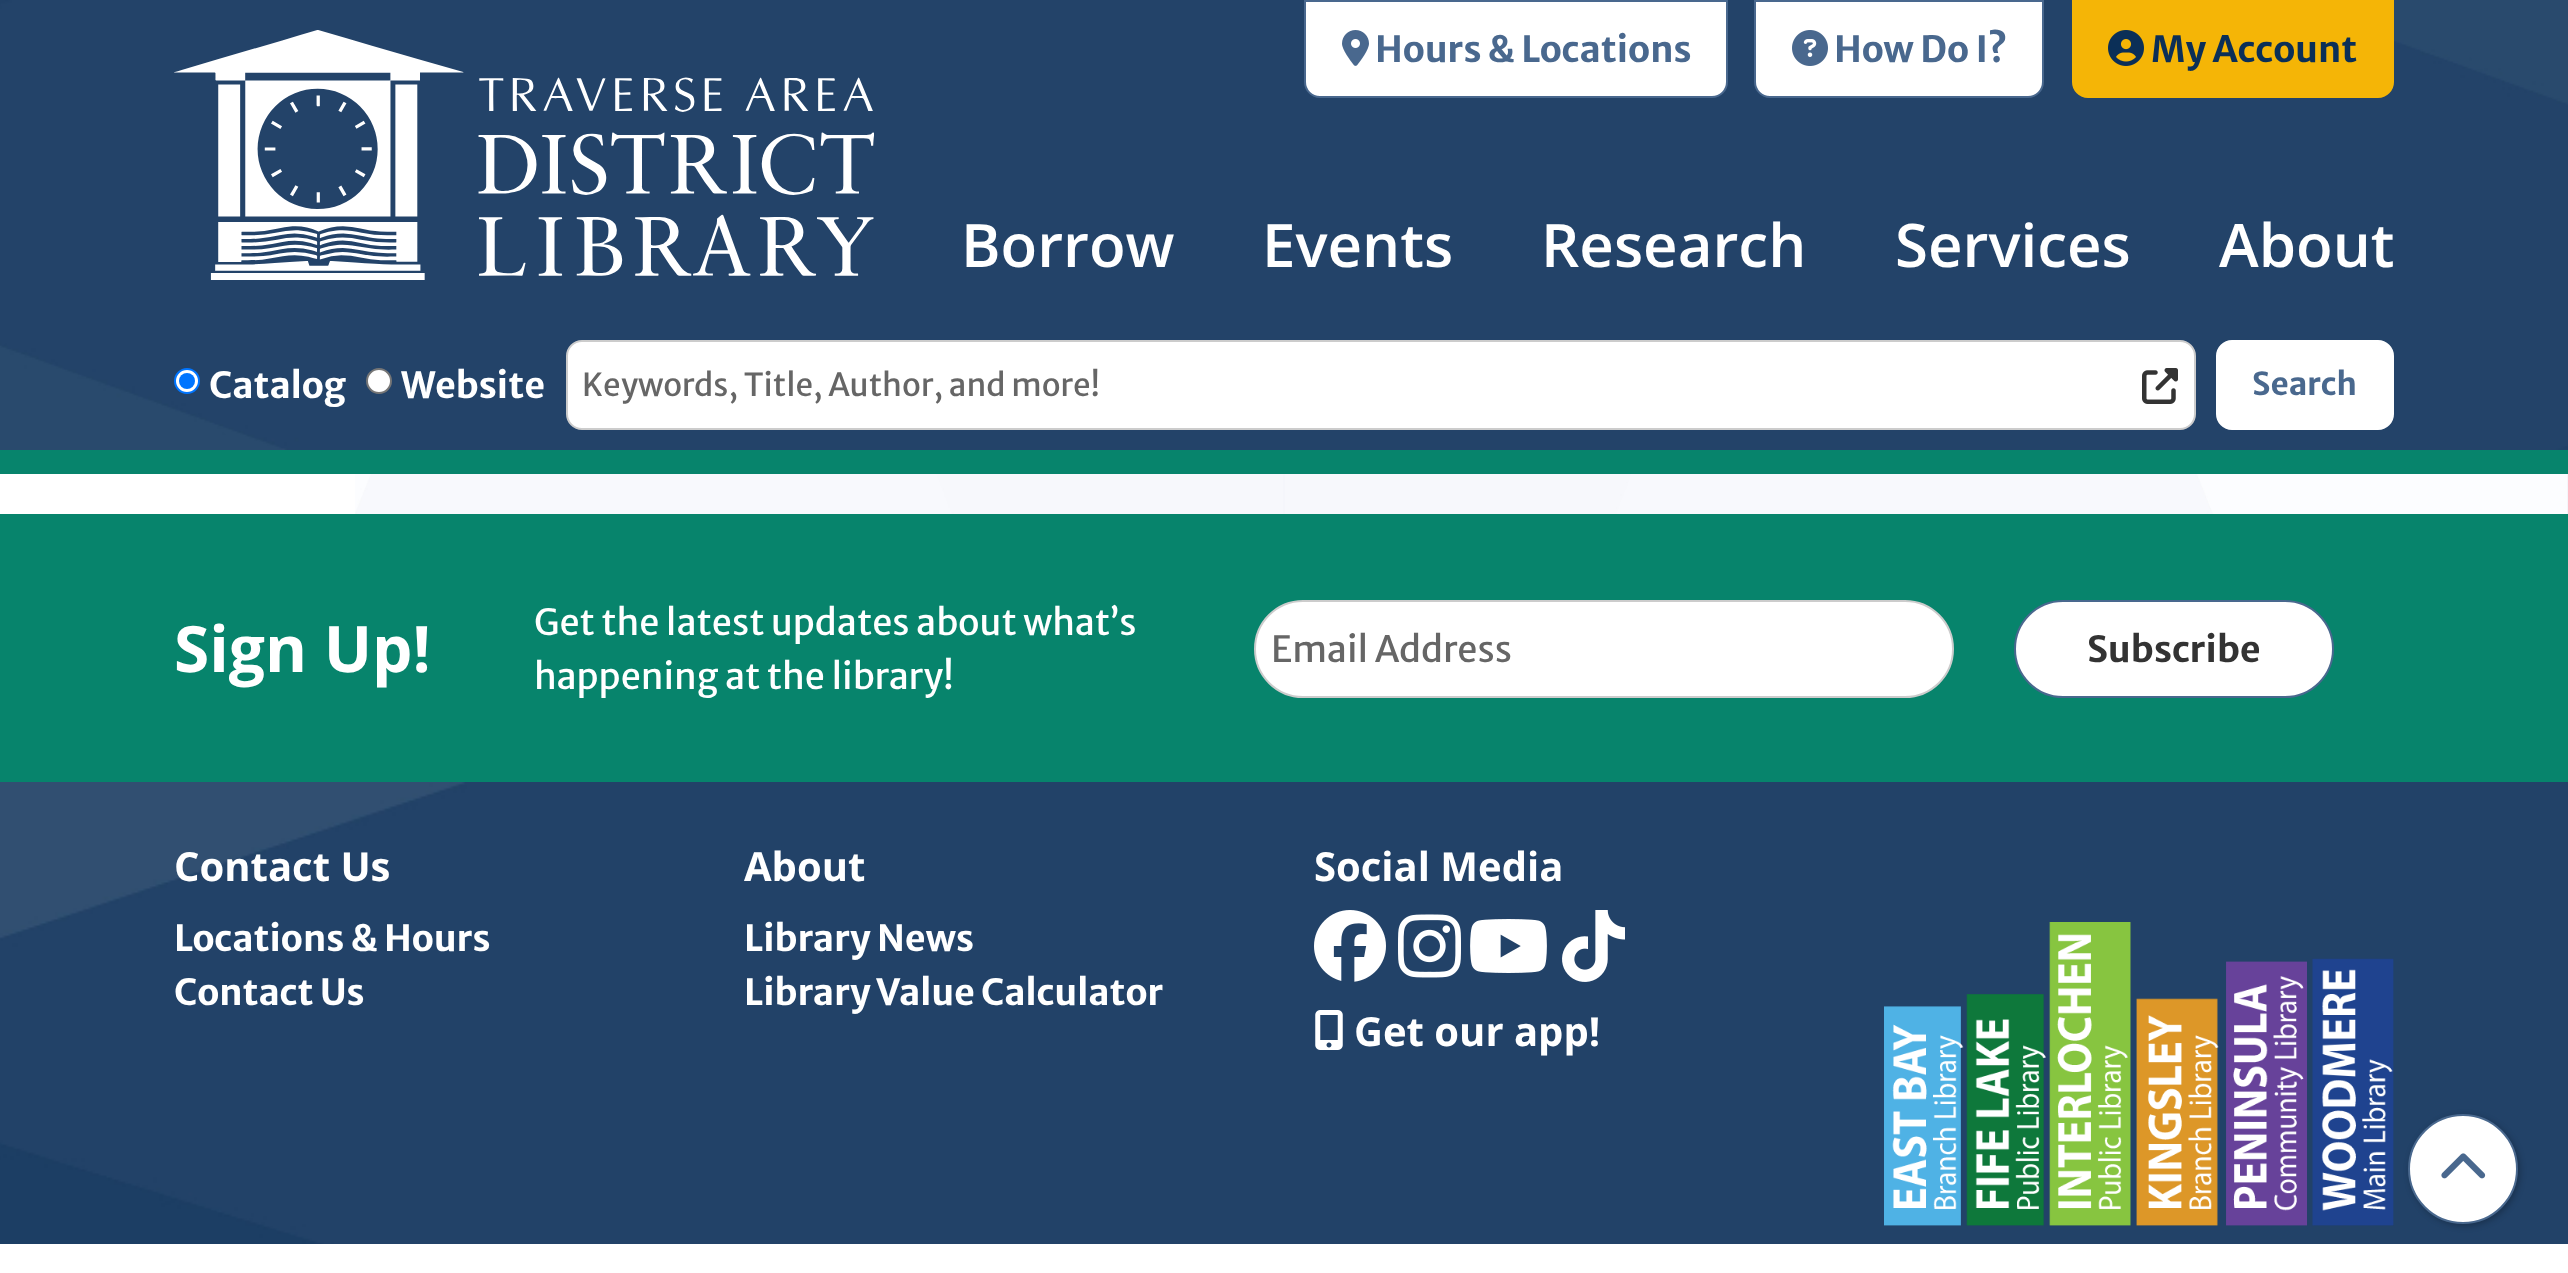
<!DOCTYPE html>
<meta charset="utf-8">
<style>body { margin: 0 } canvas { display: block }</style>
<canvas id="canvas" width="2568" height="1273"></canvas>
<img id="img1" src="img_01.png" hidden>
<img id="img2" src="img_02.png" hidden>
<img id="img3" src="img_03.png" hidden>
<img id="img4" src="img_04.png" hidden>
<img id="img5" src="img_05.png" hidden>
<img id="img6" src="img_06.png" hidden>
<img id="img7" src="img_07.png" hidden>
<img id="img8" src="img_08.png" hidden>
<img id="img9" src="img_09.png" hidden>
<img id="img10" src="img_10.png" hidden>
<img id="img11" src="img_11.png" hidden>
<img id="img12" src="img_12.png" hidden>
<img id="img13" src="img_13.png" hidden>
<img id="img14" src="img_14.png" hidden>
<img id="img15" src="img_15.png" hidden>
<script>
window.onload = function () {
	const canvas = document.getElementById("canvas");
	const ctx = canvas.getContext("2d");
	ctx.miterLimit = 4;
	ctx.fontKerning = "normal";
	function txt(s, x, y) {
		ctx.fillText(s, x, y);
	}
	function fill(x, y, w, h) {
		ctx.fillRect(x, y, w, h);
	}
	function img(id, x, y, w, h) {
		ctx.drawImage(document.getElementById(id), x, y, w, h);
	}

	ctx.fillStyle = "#FFFFFF";
	fill(0, 0, 2568, 1273);
	ctx.fillStyle = "#07846C";
	fill(0, 450, 2568, 24);
	img("img1", 0, 0, 2568, 450);
	img("img2", 174, 30, 700, 250);
	ctx.fillStyle = "#FFFFFF";
	ctx.beginPath();
	ctx.roundRect(1305, 1, 422, 96, [0, 0, 15, 15]);
	ctx.fill();
	ctx.strokeStyle = "#49688E";
	ctx.lineWidth = 2;
	ctx.stroke();
	img("img3", 1342, 30, 27, 36);
	ctx.beginPath();
	ctx.roundRect(1755, 1, 288, 96, [0, 0, 15, 15]);
	ctx.fill();
	ctx.stroke();
	img("img4", 1792, 30, 36, 36);
	ctx.fillStyle = "#F5B506";
	ctx.beginPath();
	ctx.roundRect(2073, 1, 320, 96, [0, 0, 15, 15]);
	ctx.fill();
	ctx.strokeStyle = "#F5B506";
	ctx.stroke();
	img("img5", 2108, 30, 36, 36);
	ctx.fillStyle = "#FFFFFF";
	ctx.beginPath();
	ctx.arc(187, 381, 12, 0, Math.PI * 2);
	ctx.fill();
	ctx.strokeStyle = "#0075FF";
	ctx.stroke();
	ctx.fillStyle = "#0075FF";
	ctx.beginPath();
	ctx.arc(187, 381, 8, 0, Math.PI * 2);
	ctx.fill();
	ctx.fillStyle = "#FFFFFF";
	ctx.beginPath();
	ctx.arc(379, 381, 12, 0, Math.PI * 2);
	ctx.fill();
	ctx.strokeStyle = "#767676";
	ctx.stroke();
	ctx.beginPath();
	ctx.roundRect(567, 341, 1628, 88, 15);
	ctx.fill();
	ctx.strokeStyle = "#CCCCCC";
	ctx.stroke();
	img("img6", 2142, 368, 36, 36);
	ctx.beginPath();
	ctx.roundRect(2217, 341, 176, 88, 15);
	ctx.fill();
	ctx.strokeStyle = "#FFFFFF";
	ctx.stroke();
	img("img7", 355, 474, 2213, 40);
	ctx.fillStyle = "#07846C";
	fill(0, 514, 2568, 268);
	ctx.fillStyle = "#FFFFFF";
	ctx.beginPath();
	ctx.roundRect(1255, 601, 698, 96, 48);
	ctx.fill();
	ctx.strokeStyle = "#CCCCCC";
	ctx.stroke();
	ctx.beginPath();
	ctx.roundRect(2015, 601, 318, 96, 48);
	ctx.fill();
	ctx.strokeStyle = "#49688E";
	ctx.stroke();
	img("img8", 0, 782, 2568, 462);
	img("img9", 1314, 910, 72, 72);
	img("img10", 1398, 914, 63, 64);
	img("img11", 1470, 919, 77, 54);
	img("img12", 1562, 910, 63, 72);
	img("img13", 1315, 1010, 28, 40);
	img("img14", 1884, 922, 510, 304);
	ctx.fillStyle = "rgba(0, 0, 0, 0.25)";
	ctx.filter = "blur(3px)";
	ctx.beginPath();
	ctx.roundRect(2410, 1116, 110, 110, 55);
	ctx.fill();
	ctx.filter = "none";
	ctx.fillStyle = "#FFFFFF";
	ctx.beginPath();
	ctx.arc(2463, 1169, 54, 0, Math.PI * 2);
	ctx.fill();
	ctx.stroke();
	img("img15", 2441, 1153, 45, 26);
	ctx.font = "bold 36px Merriweather Sans";
	ctx.fillStyle = "#49688E";
	txt("Hours & Locations", 1375, 62);
	txt("How Do I?", 1834, 62);
	ctx.fillStyle = "#0B2F57";
	txt("My Account", 2151, 62);
	ctx.font = "600 60px Open Sans";
	ctx.fillStyle = "#FFFFFF";
	txt("Borrow", 961, 267);
	txt("Events", 1262, 267);
	txt("Research", 1541, 267);
	txt("Services", 1895, 267);
	txt("About", 2219, 267);
	ctx.font = "bold 36px Merriweather Sans";
	txt("Catalog", 209, 398);
	txt("Website", 401, 398);
	ctx.font = "31.5px Merriweather Sans";
	ctx.fillStyle = "#666666";
	txt("Keywords, Title, Author, and more!", 582, 396);
	ctx.font = "bold 31.5px Merriweather Sans";
	ctx.fillStyle = "#49688E";
	txt("Search", 2252, 395);
	ctx.font = "bold 64px Open Sans";
	ctx.fillStyle = "#FFFFFF";
	txt("Sign Up!", 174, 672);
	ctx.font = "36px Merriweather Sans";
	txt("Get the latest updates about what’s", 534, 635);
	txt("happening at the library!", 534, 689);
	ctx.fillStyle = "#666666";
	txt("Email Address", 1271, 662);
	ctx.font = "bold 36px Merriweather Sans";
	ctx.fillStyle = "#333333";
	txt("Subscribe", 2087, 662);
	ctx.font = "bold 40px Open Sans";
	ctx.fillStyle = "#FFFFFF";
	txt("Contact Us", 174, 881);
	ctx.font = "bold 36px Merriweather Sans";
	txt("Locations & Hours", 174, 951);
	txt("Contact Us", 174, 1005);
	ctx.font = "bold 40px Open Sans";
	txt("About", 744, 881);
	ctx.font = "bold 36px Merriweather Sans";
	txt("Library News", 744, 951);
	txt("Library Value Calculator", 744, 1005);
	ctx.font = "bold 40px Open Sans";
	txt("Social Media", 1314, 881);
	txt("Get our app!", 1354, 1046);
};
</script>
